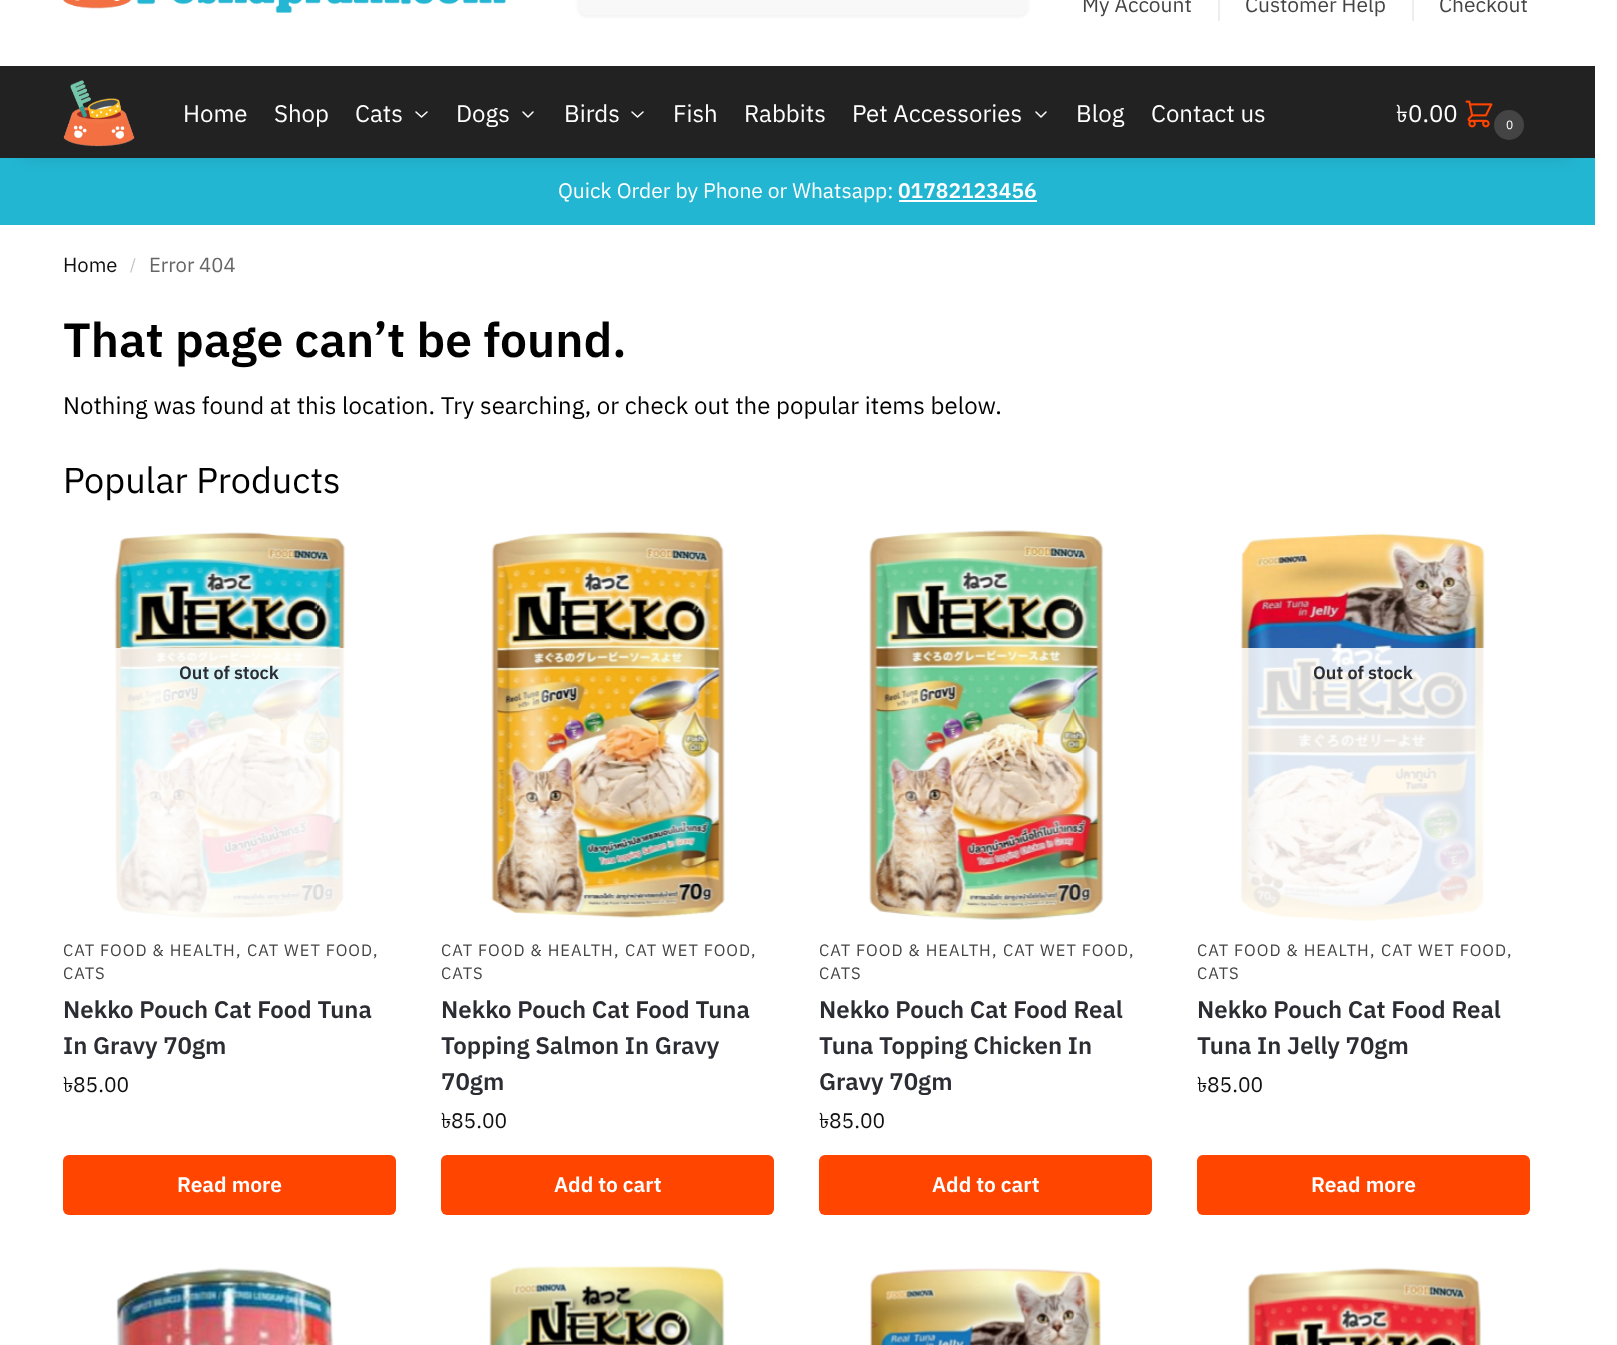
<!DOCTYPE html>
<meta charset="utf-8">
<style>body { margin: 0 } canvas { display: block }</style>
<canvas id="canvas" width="1617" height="1345"></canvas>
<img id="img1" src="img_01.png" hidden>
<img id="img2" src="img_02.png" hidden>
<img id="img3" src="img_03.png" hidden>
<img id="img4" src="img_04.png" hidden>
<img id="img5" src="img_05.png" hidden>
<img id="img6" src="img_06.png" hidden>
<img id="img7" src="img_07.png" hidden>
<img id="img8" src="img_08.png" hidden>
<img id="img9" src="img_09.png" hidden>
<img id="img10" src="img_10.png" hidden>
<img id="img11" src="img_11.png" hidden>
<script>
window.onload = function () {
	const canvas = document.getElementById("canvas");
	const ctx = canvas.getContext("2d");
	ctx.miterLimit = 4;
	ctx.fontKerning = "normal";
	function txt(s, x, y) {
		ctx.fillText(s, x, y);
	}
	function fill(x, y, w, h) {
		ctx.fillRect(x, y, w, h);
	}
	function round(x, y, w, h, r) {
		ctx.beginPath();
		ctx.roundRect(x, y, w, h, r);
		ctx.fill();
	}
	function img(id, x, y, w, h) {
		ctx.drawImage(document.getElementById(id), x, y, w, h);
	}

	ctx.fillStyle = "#FFFFFF";
	fill(0, 0, 1617, 1345);
	img("img1", 63, 0, 443, 13);
	ctx.fillStyle = "rgba(0, 0, 0, 0.05)";
	ctx.filter = "blur(1.5px)";
	ctx.beginPath();
	ctx.roundRect(578, -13, 450, 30, 8);
	ctx.fill();
	ctx.filter = "none";
	ctx.fillStyle = "#F8F8F8";
	round(578, -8, 450, 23, 8);
	ctx.fillStyle = "#EEEEEE";
	fill(1218, 0, 2, 21);
	fill(1412, 0, 2, 21);
	ctx.fillStyle = "#23B6D3";
	fill(0, 158, 1595, 67);
	ctx.fillStyle = "rgba(0, 0, 0, 0.1)";
	ctx.filter = "blur(7.5px)";
	ctx.beginPath();
	ctx.rect(23, 111, 1549, 47);
	ctx.fill();
	ctx.filter = "none";
	ctx.fillStyle = "#222222";
	fill(0, 66, 1595, 92);
	img("img2", 63, 80, 72, 67);
	ctx.beginPath();
	ctx.moveTo(427, 112);
	ctx.lineTo(421.5, 117);
	ctx.lineTo(416, 112);
	ctx.strokeStyle = "#FFFFFF";
	ctx.lineWidth = 1.5;
	ctx.lineCap = "round";
	ctx.lineJoin = "round";
	ctx.stroke();
	ctx.beginPath();
	ctx.moveTo(533, 112);
	ctx.lineTo(528, 117);
	ctx.lineTo(523, 112);
	ctx.stroke();
	ctx.beginPath();
	ctx.moveTo(643, 112);
	ctx.lineTo(637.5, 117);
	ctx.lineTo(632, 112);
	ctx.stroke();
	ctx.beginPath();
	ctx.moveTo(1046, 112);
	ctx.lineTo(1041, 117);
	ctx.lineTo(1036, 112);
	ctx.stroke();
	img("img3", 1465, 100, 28, 28);
	ctx.fillStyle = "#444444";
	ctx.beginPath();
	ctx.arc(1509, 125, 14, 0, Math.PI * 2);
	ctx.fill();
	ctx.strokeStyle = "#444444";
	ctx.lineWidth = 2;
	ctx.stroke();
	ctx.fillStyle = "#FFFFFF";
	fill(899, 200, 138, 2);
	img("img4", 114, 532, 232, 387);
	ctx.fillStyle = "rgba(255, 255, 255, 0.85)";
	fill(114, 648, 231, 271);
	ctx.fillStyle = "#FF4500";
	round(63, 1155, 333, 60, 6);
	img("img5", 491, 531, 234, 387);
	round(441, 1155, 333, 60, 6);
	img("img6", 869, 530, 235, 390);
	round(819, 1155, 333, 60, 6);
	img("img7", 1240, 533, 245, 388);
	ctx.fillStyle = "rgba(255, 255, 255, 0.85)";
	fill(1240, 648, 245, 273);
	ctx.fillStyle = "#FF4500";
	round(1197, 1155, 333, 60, 6);
	img("img8", 116, 1267, 218, 78);
	img("img9", 489, 1266, 236, 79);
	img("img10", 869, 1268, 232, 77);
	img("img11", 1247, 1267, 235, 78);
	ctx.font = "21px IBM Plex Sans";
	ctx.fillStyle = "#444444";
	txt("My Account", 1082, 12);
	txt("Customer Help", 1245, 12);
	txt("Checkout", 1439, 12);
	ctx.font = "24px IBM Plex Sans";
	ctx.fillStyle = "#FFFFFF";
	txt("Home", 183, 122);
	txt("Shop", 274, 122);
	txt("Cats", 355, 122);
	txt("Dogs", 456, 122);
	txt("Birds", 564, 122);
	txt("Fish", 673, 122);
	txt("Rabbits", 744, 122);
	txt("Pet Accessories", 852, 122);
	txt("Blog", 1076, 122);
	txt("Contact us", 1151, 122);
	ctx.font = "24px Lohit Bengali";
	txt("৳", 1396, 122);
	ctx.font = "24px IBM Plex Sans";
	txt("0.00", 1408, 122);
	ctx.font = "12px IBM Plex Sans";
	txt("0", 1506, 129);
	ctx.font = "21px IBM Plex Sans";
	txt("Quick Order by Phone or Whatsapp:", 558, 198);
	ctx.font = "600 21px IBM Plex Sans";
	txt("01782123456", 898, 198);
	ctx.font = "20.25px IBM Plex Sans";
	ctx.fillStyle = "#111111";
	txt("Home", 63, 272);
	ctx.font = "16px IBM Plex Sans";
	ctx.fillStyle = "#C2C2C2";
	txt("/", 130, 270);
	ctx.font = "20.25px IBM Plex Sans";
	ctx.fillStyle = "#666666";
	txt("Error 404", 149, 272);
	ctx.font = "600 48px IBM Plex Sans";
	ctx.fillStyle = "#000000";
	txt("That page can’t be found.", 63, 357);
	ctx.font = "24px IBM Plex Sans";
	txt("Nothing was found at this location. Try searching, or check out the popular items below.", 63, 414);
	ctx.font = "36px IBM Plex Sans";
	txt("Popular Products", 63, 493);
	ctx.font = "600 18px IBM Plex Sans";
	ctx.fillStyle = "#2C2D33";
	txt("Out of stock", 179, 679);
	ctx.letterSpacing = "1px";
	ctx.font = "16.5px IBM Plex Sans";
	ctx.fillStyle = "#444444";
	txt("CAT FOOD & HEALTH", 63, 956);
	txt(",", 236, 956);
	txt("CAT WET FOOD", 247, 956);
	txt(",", 373, 956);
	txt("CATS", 63, 979);
	ctx.letterSpacing = "0px";
	ctx.font = "600 24px IBM Plex Sans";
	ctx.fillStyle = "#2C2D33";
	txt("Nekko Pouch Cat Food Tuna", 63, 1018);
	txt("In Gravy 70gm", 63, 1054);
	ctx.font = "21px Lohit Bengali";
	ctx.fillStyle = "#111111";
	txt("৳", 63, 1092);
	ctx.font = "21px IBM Plex Sans";
	txt("85.00", 73, 1092);
	ctx.font = "600 21px IBM Plex Sans";
	ctx.fillStyle = "#FFFFFF";
	txt("Read more", 177, 1192);
	ctx.letterSpacing = "1px";
	ctx.font = "16.5px IBM Plex Sans";
	ctx.fillStyle = "#444444";
	txt("CAT FOOD & HEALTH", 441, 956);
	txt(",", 614, 956);
	txt("CAT WET FOOD", 625, 956);
	txt(",", 751, 956);
	txt("CATS", 441, 979);
	ctx.letterSpacing = "0px";
	ctx.font = "600 24px IBM Plex Sans";
	ctx.fillStyle = "#2C2D33";
	txt("Nekko Pouch Cat Food Tuna", 441, 1018);
	txt("Topping Salmon In Gravy", 441, 1054);
	txt("70gm", 441, 1090);
	ctx.font = "21px Lohit Bengali";
	ctx.fillStyle = "#111111";
	txt("৳", 441, 1128);
	ctx.font = "21px IBM Plex Sans";
	txt("85.00", 451, 1128);
	ctx.font = "600 21px IBM Plex Sans";
	ctx.fillStyle = "#FFFFFF";
	txt("Add to cart", 554, 1192);
	ctx.letterSpacing = "1px";
	ctx.font = "16.5px IBM Plex Sans";
	ctx.fillStyle = "#444444";
	txt("CAT FOOD & HEALTH", 819, 956);
	txt(",", 992, 956);
	txt("CAT WET FOOD", 1003, 956);
	txt(",", 1129, 956);
	txt("CATS", 819, 979);
	ctx.letterSpacing = "0px";
	ctx.font = "600 24px IBM Plex Sans";
	ctx.fillStyle = "#2C2D33";
	txt("Nekko Pouch Cat Food Real", 819, 1018);
	txt("Tuna Topping Chicken In", 819, 1054);
	txt("Gravy 70gm", 819, 1090);
	ctx.font = "21px Lohit Bengali";
	ctx.fillStyle = "#111111";
	txt("৳", 819, 1128);
	ctx.font = "21px IBM Plex Sans";
	txt("85.00", 829, 1128);
	ctx.font = "600 21px IBM Plex Sans";
	ctx.fillStyle = "#FFFFFF";
	txt("Add to cart", 932, 1192);
	ctx.font = "600 18px IBM Plex Sans";
	ctx.fillStyle = "#2C2D33";
	txt("Out of stock", 1313, 679);
	ctx.letterSpacing = "1px";
	ctx.font = "16.5px IBM Plex Sans";
	ctx.fillStyle = "#444444";
	txt("CAT FOOD & HEALTH", 1197, 956);
	txt(",", 1370, 956);
	txt("CAT WET FOOD", 1381, 956);
	txt(",", 1507, 956);
	txt("CATS", 1197, 979);
	ctx.letterSpacing = "0px";
	ctx.font = "600 24px IBM Plex Sans";
	ctx.fillStyle = "#2C2D33";
	txt("Nekko Pouch Cat Food Real", 1197, 1018);
	txt("Tuna In Jelly 70gm", 1197, 1054);
	ctx.font = "21px Lohit Bengali";
	ctx.fillStyle = "#111111";
	txt("৳", 1197, 1092);
	ctx.font = "21px IBM Plex Sans";
	txt("85.00", 1207, 1092);
	ctx.font = "600 21px IBM Plex Sans";
	ctx.fillStyle = "#FFFFFF";
	txt("Read more", 1311, 1192);
};
</script>
